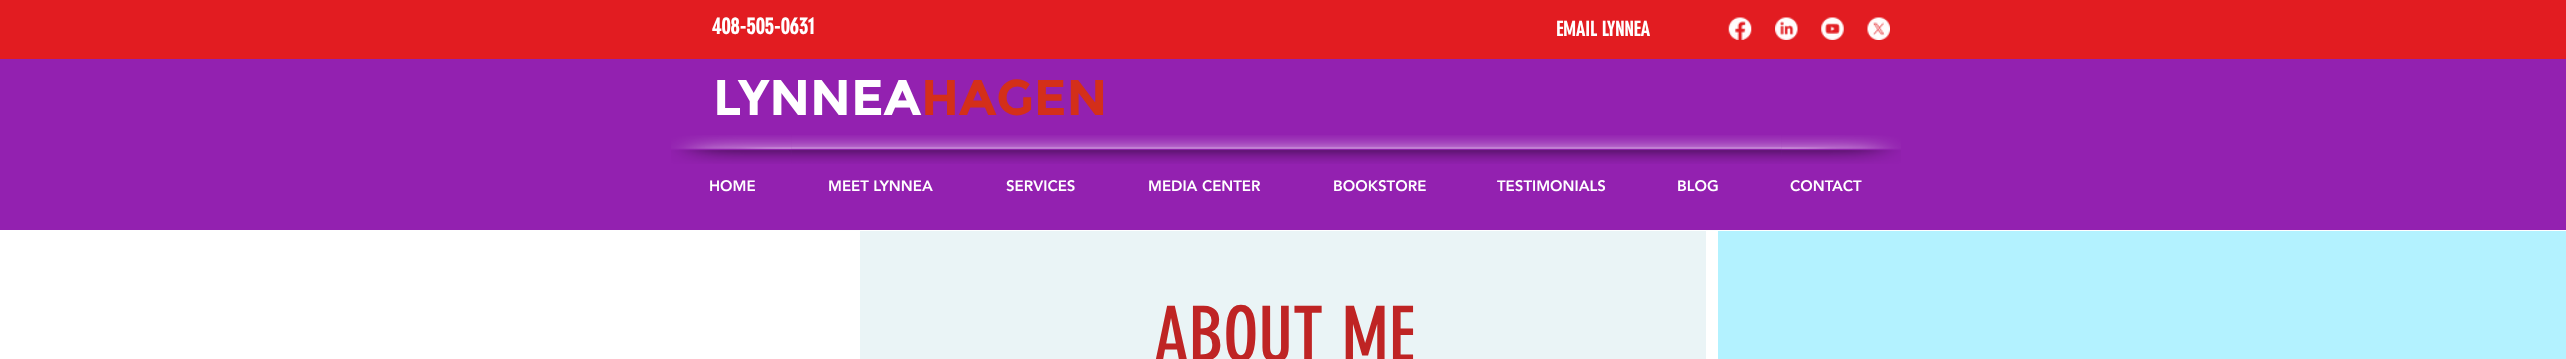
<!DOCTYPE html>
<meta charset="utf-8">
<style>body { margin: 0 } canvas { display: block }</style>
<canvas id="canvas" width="2566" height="359"></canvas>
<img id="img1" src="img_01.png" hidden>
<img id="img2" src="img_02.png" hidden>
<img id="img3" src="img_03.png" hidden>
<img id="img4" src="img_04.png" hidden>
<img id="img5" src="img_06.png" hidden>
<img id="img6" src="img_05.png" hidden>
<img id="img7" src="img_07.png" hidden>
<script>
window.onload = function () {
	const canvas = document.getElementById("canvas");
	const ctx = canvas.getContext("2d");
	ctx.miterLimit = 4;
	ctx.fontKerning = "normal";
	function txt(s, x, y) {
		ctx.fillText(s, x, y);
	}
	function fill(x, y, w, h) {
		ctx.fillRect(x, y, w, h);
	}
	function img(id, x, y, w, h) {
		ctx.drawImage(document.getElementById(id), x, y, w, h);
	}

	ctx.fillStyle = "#FFFFFF";
	fill(0, 0, 2566, 359);
	ctx.fillStyle = "#E21C21";
	fill(0, 0, 2566, 59);
	img("img1", 1728, 17, 24, 23);
	img("img2", 1775, 17, 23, 23);
	img("img3", 1821, 17, 23, 23);
	img("img4", 1867, 17, 23, 23);
	ctx.fillStyle = "#9321B0";
	fill(0, 59, 2566, 171);
	img("img5", 791, 135, 991, 29);
	img("img6", 671, 135, 121, 29);
	img("img7", 1781, 135, 120, 29);
	ctx.fillStyle = "#EAF4F6";
	fill(860, 231, 846, 128);
	ctx.fillStyle = "#B3F2FF";
	fill(1718, 231, 848, 128);
	ctx.font = "bold 22.5px 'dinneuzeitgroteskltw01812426'";
	ctx.fillStyle = "#FFFFFF";
	txt("408-505-0631", 712, 34);
	ctx.font = "bold 20px 'dinneuzeitgroteskltw01812426'";
	txt("EMAIL LYNNEA", 1556, 36);
	ctx.font = "bold 50px Montserrat";
	txt("LYNNEA", 713, 115);
	ctx.fillStyle = "#D42F19";
	txt("HAGEN", 921, 115);
	ctx.font = "900 15px 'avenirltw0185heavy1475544'";
	ctx.fillStyle = "#FFFFFF";
	txt("HOME", 709, 191);
	txt("MEET LYNNEA", 828, 191);
	txt("SERVICES", 1006, 191);
	txt("MEDIA CENTER", 1148, 191);
	txt("BOOKSTORE", 1333, 191);
	txt("TESTIMONIALS", 1497, 191);
	txt("BLOG", 1677, 191);
	txt("CONTACT", 1790, 191);
	ctx.font = "75px 'dinneuzeitgroteskltw01812426'";
	ctx.fillStyle = "#BF2424";
	txt("ABOUT ME", 1154, 361);
};
</script>
